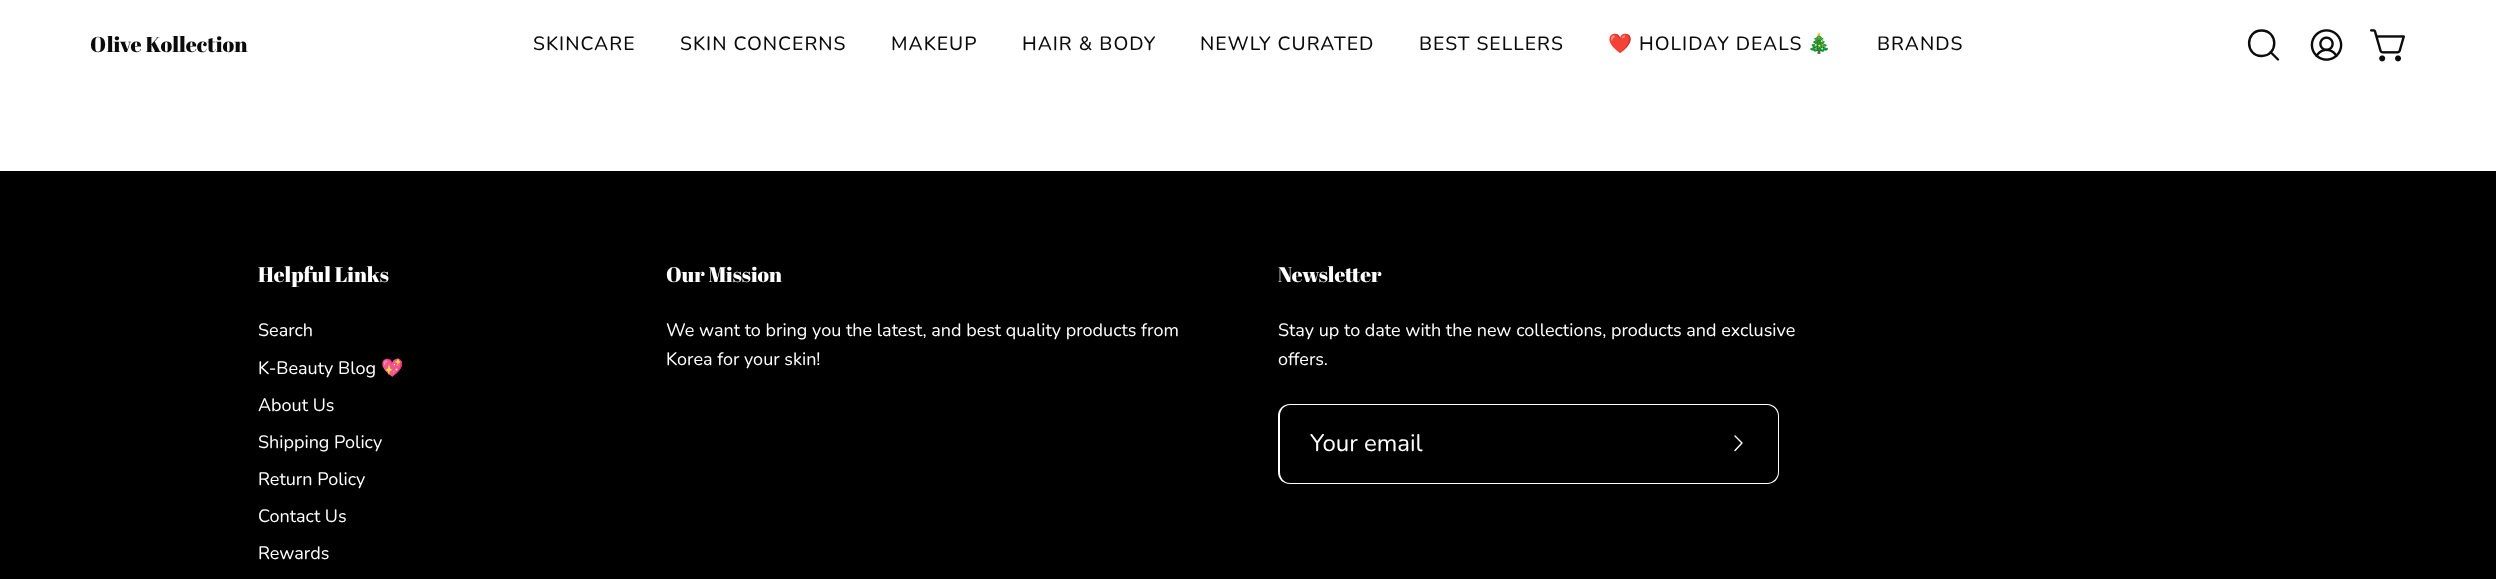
<!DOCTYPE html>
<meta charset="utf-8">
<style>body { margin: 0 } canvas { display: block }</style>
<canvas id="canvas" width="2496" height="579"></canvas>
<img id="img1" src="img_01.png" hidden>
<img id="img2" src="img_02.png" hidden>
<script>
window.onload = function () {
	const canvas = document.getElementById("canvas");
	const ctx = canvas.getContext("2d");
	ctx.miterLimit = 4;
	ctx.fontKerning = "normal";
	function txt(s, x, y) {
		ctx.fillText(s, x, y);
	}
	function fill(x, y, w, h) {
		ctx.fillRect(x, y, w, h);
	}
	function img(id, x, y, w, h) {
		ctx.drawImage(document.getElementById(id), x, y, w, h);
	}

	ctx.fillStyle = "#FFFFFF";
	fill(0, 0, 2496, 579);
	ctx.beginPath();
	ctx.moveTo(2261.5, 56);
	ctx.bezierCurveTo(2278.5, 56, 2278.5, 30.5, 2261.5, 30.5);
	ctx.bezierCurveTo(2245, 30.5, 2245, 56, 2261.5, 56);
	ctx.closePath();
	ctx.moveTo(2270.5, 52);
	ctx.lineTo(2278, 59.5);
	ctx.strokeStyle = "#0B0B0B";
	ctx.lineWidth = 2.4;
	ctx.lineCap = "round";
	ctx.lineJoin = "round";
	ctx.stroke();
	img("img1", 2310, 29, 33, 32);
	img("img2", 2370, 29, 35, 33);
	ctx.fillStyle = "#000000";
	fill(0, 171, 2496, 408);
	ctx.fillStyle = "#FFFFFF";
	ctx.beginPath();
	ctx.moveTo(1290, 404);
	ctx.lineTo(1698, 404);
	ctx.lineTo(1698, 484);
	ctx.lineTo(1290, 484);
	ctx.bezierCurveTo(1283, 484, 1278, 479, 1278, 472);
	ctx.lineTo(1278, 416);
	ctx.bezierCurveTo(1278, 409, 1283, 404, 1290, 404);
	ctx.closePath();
	ctx.moveTo(1290, 405);
	ctx.lineTo(1698, 405);
	ctx.lineTo(1698, 483);
	ctx.lineTo(1290, 483);
	ctx.bezierCurveTo(1284, 483, 1280, 478, 1280, 472);
	ctx.lineTo(1280, 416);
	ctx.bezierCurveTo(1280, 410, 1284, 405, 1290, 405);
	ctx.closePath();
	ctx.fill("evenodd");
	ctx.beginPath();
	ctx.moveTo(1698, 404);
	ctx.lineTo(1767, 404);
	ctx.bezierCurveTo(1774, 404, 1779, 409, 1779, 416);
	ctx.lineTo(1779, 472);
	ctx.bezierCurveTo(1779, 479, 1774, 484, 1767, 484);
	ctx.lineTo(1698, 484);
	ctx.closePath();
	ctx.moveTo(1698, 405);
	ctx.lineTo(1767, 405);
	ctx.bezierCurveTo(1773, 405, 1778, 410, 1778, 416);
	ctx.lineTo(1778, 472);
	ctx.bezierCurveTo(1778, 478, 1773, 483, 1767, 483);
	ctx.lineTo(1698, 483);
	ctx.closePath();
	ctx.fill("evenodd");
	ctx.beginPath();
	ctx.moveTo(1735, 436);
	ctx.lineTo(1742, 443);
	ctx.lineTo(1735, 450.5);
	ctx.strokeStyle = "#FFFFFF";
	ctx.lineWidth = 1.4;
	ctx.stroke();
	ctx.font = "21.5px Abril Fatface";
	ctx.fillStyle = "#0B0B0B";
	txt("Olive Kollection", 90, 52);
	ctx.letterSpacing = "1px";
	ctx.font = "500 19.25px Nunito";
	txt("SKINCARE", 533, 50);
	txt("SKIN CONCERNS", 680, 50);
	txt("MAKEUP", 891, 50);
	txt("HAIR & BODY", 1022, 50);
	txt("NEWLY CURATED", 1200, 50);
	txt("BEST SELLERS", 1419, 50);
	ctx.font = "19.25px Noto Color Emoji";
	txt("❤️", 1608, 50);
	ctx.font = "500 19.25px Nunito";
	txt("HOLIDAY DEALS", 1639, 50);
	ctx.font = "19.25px Noto Color Emoji";
	txt("🎄", 1807, 50);
	ctx.font = "500 19.25px Nunito";
	txt("BRANDS", 1877, 50);
	ctx.letterSpacing = "0px";
	ctx.font = "21px Abril Fatface";
	ctx.fillStyle = "#FFFFFF";
	txt("Helpful Links", 258, 282);
	ctx.font = "18px Nunito";
	txt("Search", 258, 336);
	txt("K-Beauty Blog", 258, 374);
	ctx.font = "18px Noto Color Emoji";
	txt("💖", 381, 374);
	ctx.font = "18px Nunito";
	txt("About Us", 258, 411);
	txt("Shipping Policy", 258, 448);
	txt("Return Policy", 258, 485);
	txt("Contact Us", 258, 522);
	txt("Rewards", 258, 559);
	ctx.font = "21px Abril Fatface";
	txt("Our Mission", 666, 282);
	ctx.font = "18px Nunito";
	txt("We want to bring you the latest, and best quality products from", 666, 336);
	txt("Korea for your skin!", 666, 365);
	ctx.font = "21px Abril Fatface";
	txt("Newsletter", 1278, 282);
	ctx.font = "18px Nunito";
	txt("Stay up to date with the new collections, products and exclusive", 1278, 336);
	txt("offers.", 1278, 365);
	ctx.font = "24px Nunito";
	txt("Your email", 1310, 451);
};
</script>
